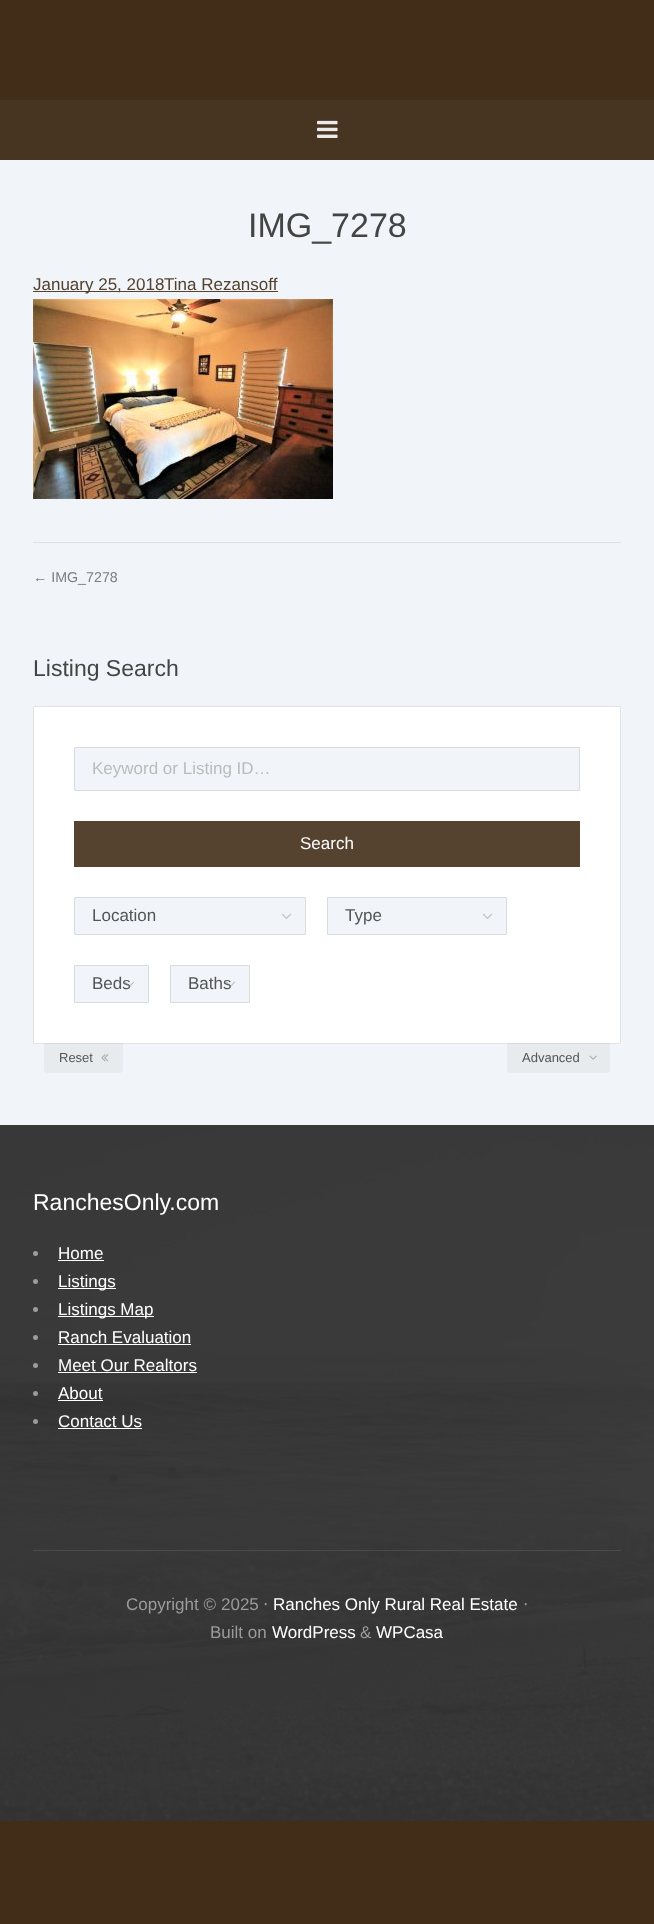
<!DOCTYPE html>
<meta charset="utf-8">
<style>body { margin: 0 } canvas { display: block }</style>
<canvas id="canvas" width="654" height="1924"></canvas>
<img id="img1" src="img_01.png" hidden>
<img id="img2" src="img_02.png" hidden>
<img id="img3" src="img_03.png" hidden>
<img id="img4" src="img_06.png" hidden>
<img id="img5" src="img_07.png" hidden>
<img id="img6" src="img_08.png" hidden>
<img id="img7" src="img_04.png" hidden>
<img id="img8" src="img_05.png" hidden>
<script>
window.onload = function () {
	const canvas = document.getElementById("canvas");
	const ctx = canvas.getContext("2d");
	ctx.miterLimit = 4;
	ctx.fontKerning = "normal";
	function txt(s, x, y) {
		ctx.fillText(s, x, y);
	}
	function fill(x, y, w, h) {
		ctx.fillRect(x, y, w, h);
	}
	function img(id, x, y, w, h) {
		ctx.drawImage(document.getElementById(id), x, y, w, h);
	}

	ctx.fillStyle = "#422E18";
	fill(0, 0, 654, 1924);
	ctx.fillStyle = "#483521";
	fill(0, 100, 654, 60);
	img("img1", 317, 120, 21, 18);
	ctx.fillStyle = "#F1F5F9";
	fill(0, 160, 654, 965);
	ctx.fillStyle = "#54422F";
	fill(33, 291, 245, 1);
	img("img2", 33, 299, 300, 200);
	ctx.fillStyle = "#DFE2E5";
	fill(33, 542, 588, 1);
	ctx.fillStyle = "#FFFFFF";
	ctx.beginPath();
	ctx.rect(33.5, 706.5, 587, 337);
	ctx.fill();
	ctx.strokeStyle = "#E3E3E3";
	ctx.stroke();
	ctx.fillStyle = "#F1F5F9";
	ctx.beginPath();
	ctx.rect(74.5, 747.5, 505, 43);
	ctx.fill();
	ctx.strokeStyle = "#D9DCDF";
	ctx.stroke();
	ctx.fillStyle = "#55432F";
	fill(74, 821, 506, 46);
	ctx.fillStyle = "#F1F5F9";
	ctx.beginPath();
	ctx.rect(74.5, 897.5, 231, 37);
	ctx.fill();
	ctx.stroke();
	img("img3", 281, 913, 11, 6);
	ctx.beginPath();
	ctx.rect(327.5, 897.5, 179, 37);
	ctx.fill();
	ctx.stroke();
	img("img3", 482, 913, 11, 6);
	ctx.beginPath();
	ctx.rect(74.5, 965.5, 74, 37);
	ctx.fill();
	ctx.stroke();
	ctx.beginPath();
	ctx.rect(170.5, 965.5, 79, 37);
	ctx.fill();
	ctx.stroke();
	ctx.fillStyle = "rgba(144, 144, 144, 0.1)";
	ctx.beginPath();
	ctx.roundRect(44, 1043, 79, 30, [0, 0, 4, 4]);
	ctx.fill();
	img("img4", 101, 1054, 8, 8);
	ctx.beginPath();
	ctx.roundRect(507, 1043, 103, 30, [0, 0, 4, 4]);
	ctx.fill();
	img("img5", 589, 1055, 8, 5);
	img("img6", 0, 1125, 654, 696);
	ctx.fillStyle = "rgba(48, 48, 48, 0.95)";
	fill(0, 1125, 654, 425);
	ctx.fillStyle = "#9C9C9C";
	ctx.beginPath();
	ctx.arc(35.5, 1253.5, 2.5, 0, Math.PI * 2);
	ctx.fill();
	ctx.fillStyle = "#FFFFFF";
	fill(58, 1260, 46, 1);
	ctx.fillStyle = "#9C9C9C";
	ctx.beginPath();
	ctx.arc(35.5, 1281.5, 2.5, 0, Math.PI * 2);
	ctx.fill();
	ctx.fillStyle = "#FFFFFF";
	fill(58, 1288, 58, 1);
	ctx.fillStyle = "#9C9C9C";
	ctx.beginPath();
	ctx.arc(35.5, 1309.5, 2.5, 0, Math.PI * 2);
	ctx.fill();
	ctx.fillStyle = "#FFFFFF";
	fill(58, 1316, 96, 1);
	ctx.fillStyle = "#9C9C9C";
	ctx.beginPath();
	ctx.arc(35.5, 1337.5, 2.5, 0, Math.PI * 2);
	ctx.fill();
	ctx.fillStyle = "#FFFFFF";
	fill(58, 1344, 133, 1);
	ctx.fillStyle = "#9B9B9B";
	ctx.beginPath();
	ctx.arc(35.5, 1365.5, 2.5, 0, Math.PI * 2);
	ctx.fill();
	ctx.fillStyle = "#FFFFFF";
	fill(58, 1372, 139, 1);
	ctx.fillStyle = "#9A9A9A";
	ctx.beginPath();
	ctx.arc(35.5, 1393.5, 2.5, 0, Math.PI * 2);
	ctx.fill();
	ctx.fillStyle = "#FFFFFF";
	fill(58, 1400, 45, 1);
	ctx.fillStyle = "#9A9A9A";
	ctx.beginPath();
	ctx.arc(35.5, 1421.5, 2.5, 0, Math.PI * 2);
	ctx.fill();
	ctx.fillStyle = "#FFFFFF";
	fill(58, 1428, 84, 1);
	ctx.fillStyle = "rgba(48, 48, 48, 0.95)";
	fill(0, 1550, 654, 1);
	ctx.fillStyle = "rgba(255, 255, 255, 0.1)";
	fill(33, 1550, 588, 1);
	ctx.fillStyle = "rgba(48, 48, 48, 0.95)";
	fill(0, 1551, 654, 270);
	ctx.font = "34px Liberation Sans";
	ctx.fillStyle = "#444444";
	txt("IMG_7278", 248, 237);
	ctx.font = "17px Liberation Sans";
	ctx.fillStyle = "#53422E";
	txt("January 25, 2018", 33, 290);
	txt("Tina Rezansoff", 164, 290);
	ctx.font = "14.25px Liberation Sans";
	ctx.fillStyle = "#7C7D7E";
	txt("← IMG_7278", 33, 582);
	ctx.font = "23px Liberation Sans";
	ctx.fillStyle = "#444444";
	txt("Listing Search", 33, 676);
	ctx.font = "17px Liberation Sans";
	ctx.fillStyle = "#BBBBBB";
	txt("Keyword or Listing ID…", 92, 774);
	ctx.fillStyle = "#FFFFFF";
	txt("Search", 300, 849);
	ctx.fillStyle = "#555555";
	txt("Location", 92, 921);
	txt("Type", 345, 921);
	txt("Beds", 92, 989);
	img("img7", 125, 981, 10, 6);
	txt("Baths", 188, 989);
	img("img8", 226, 981, 10, 6);
	ctx.font = "13px Liberation Sans";
	txt("Reset", 59, 1062);
	txt("Advanced", 522, 1062);
	ctx.font = "23px Liberation Sans";
	ctx.fillStyle = "#FFFFFF";
	txt("RanchesOnly.com", 33, 1210);
	ctx.font = "17px Liberation Sans";
	txt("Home", 58, 1259);
	txt("Listings", 58, 1287);
	txt("Listings Map", 58, 1315);
	txt("Ranch Evaluation", 58, 1343);
	txt("Meet Our Realtors", 58, 1371);
	txt("About", 58, 1399);
	txt("Contact Us", 58, 1427);
	ctx.fillStyle = "#9B9B9B";
	txt("Copyright ©", 126, 1610);
	txt("2025", 221, 1610);
	ctx.font = "17px DejaVu Sans";
	txt("⋅", 263, 1610);
	ctx.font = "17px Liberation Sans";
	ctx.fillStyle = "#FFFFFF";
	txt("Ranches Only Rural Real Estate", 273, 1610);
	ctx.font = "17px DejaVu Sans";
	ctx.fillStyle = "#9B9B9B";
	txt("⋅", 523, 1610);
	ctx.font = "17px Liberation Sans";
	txt("Built on", 210, 1638);
	ctx.fillStyle = "#FFFFFF";
	txt("WordPress", 272, 1638);
	ctx.fillStyle = "#9B9B9B";
	txt("&", 360, 1638);
	ctx.fillStyle = "#FFFFFF";
	txt("WPCasa", 376, 1638);
};
</script>
